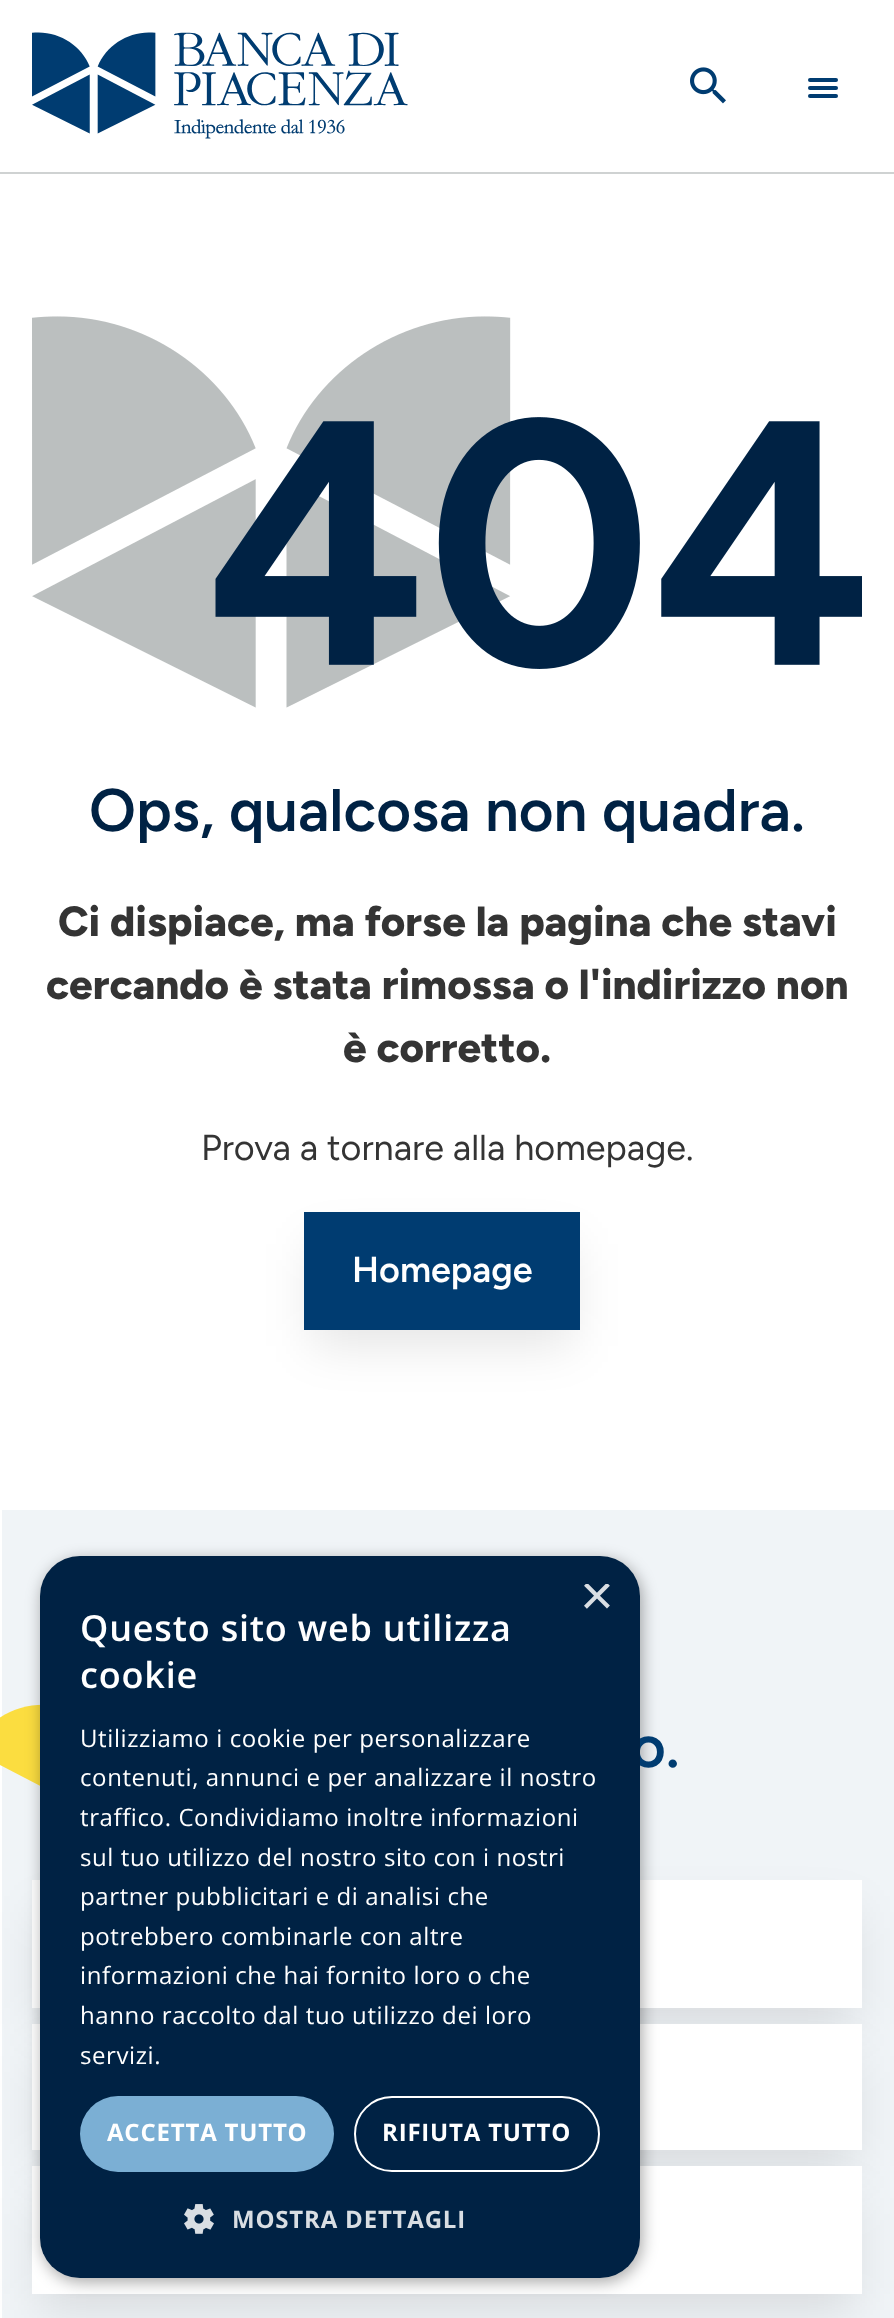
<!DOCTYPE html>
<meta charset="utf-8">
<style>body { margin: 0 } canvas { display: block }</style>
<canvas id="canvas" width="894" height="2318"></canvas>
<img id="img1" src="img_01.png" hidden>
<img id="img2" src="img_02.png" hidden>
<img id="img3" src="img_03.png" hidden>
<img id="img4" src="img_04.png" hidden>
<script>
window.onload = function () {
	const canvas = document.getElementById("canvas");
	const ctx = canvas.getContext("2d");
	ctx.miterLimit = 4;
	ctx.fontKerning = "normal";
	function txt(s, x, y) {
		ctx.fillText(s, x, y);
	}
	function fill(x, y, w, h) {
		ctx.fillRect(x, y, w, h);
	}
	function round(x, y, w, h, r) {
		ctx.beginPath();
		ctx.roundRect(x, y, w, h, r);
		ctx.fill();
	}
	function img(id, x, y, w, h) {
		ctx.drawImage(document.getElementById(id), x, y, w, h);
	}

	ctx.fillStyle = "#FFFFFF";
	fill(0, 0, 894, 2318);
	ctx.fillStyle = "#CFD2D2";
	fill(0, 172, 894, 2);
	img("img1", 32, 32, 376, 107);
	img("img2", 690, 67, 36, 37);
	ctx.fillStyle = "#003C71";
	round(808, 86, 30, 4, 2);
	round(808, 78, 30, 4, 2);
	round(808, 94, 30, 4, 2);
	img("img3", 32, 316, 830, 392);
	ctx.fillStyle = "rgba(0, 0, 0, 0.1)";
	ctx.filter = "blur(24px)";
	ctx.beginPath();
	ctx.rect(312, 1244, 260, 102);
	ctx.fill();
	ctx.filter = "none";
	ctx.fillStyle = "#003C71";
	fill(304, 1212, 276, 118);
	ctx.fillStyle = "#F0F4F7";
	fill(2, 1510, 892, 808);
	ctx.fillStyle = "#FBDD40";
	ctx.beginPath();
	ctx.moveTo(-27, 1751);
	ctx.lineTo(50, 1791);
	ctx.lineTo(51, 1705);
	ctx.bezierCurveTo(18, 1702, -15, 1719, -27, 1751);
	ctx.closePath();
	ctx.fill();
	ctx.fillStyle = "rgba(0, 0, 0, 0.1)";
	ctx.filter = "blur(24px)";
	ctx.beginPath();
	ctx.rect(40, 1912, 814, 112);
	ctx.fill();
	ctx.filter = "none";
	ctx.fillStyle = "#FFFFFF";
	fill(32, 1880, 830, 128);
	ctx.fillStyle = "rgba(0, 0, 0, 0.1)";
	ctx.filter = "blur(24px)";
	ctx.beginPath();
	ctx.rect(40, 2056, 814, 110);
	ctx.fill();
	ctx.filter = "none";
	ctx.fillStyle = "#FFFFFF";
	fill(32, 2024, 830, 126);
	ctx.fillStyle = "rgba(0, 0, 0, 0.1)";
	ctx.filter = "blur(24px)";
	ctx.beginPath();
	ctx.rect(40, 2198, 814, 112);
	ctx.fill();
	ctx.filter = "none";
	ctx.fillStyle = "#FFFFFF";
	fill(32, 2166, 830, 128);
	ctx.fillStyle = "rgba(0, 0, 0, 0.35)";
	ctx.filter = "blur(8px)";
	ctx.beginPath();
	ctx.roundRect(42, 1560, 600, 722, 40);
	ctx.fill();
	ctx.filter = "none";
	ctx.font = "600 60px Figtree";
	ctx.fillStyle = "#002244";
	txt("Ops, qualcosa non quadra.", 89, 831);
	ctx.font = "800 42.1px Figtree";
	ctx.fillStyle = "#343434";
	txt("Ci dispiace, ma forse la pagina che stavi", 58, 936);
	txt("cercando è stata rimossa o l'indirizzo non", 46, 999);
	txt("è corretto.", 343, 1062);
	ctx.font = "300 36px Figtree";
	txt("Prova a tornare alla homepage.", 201, 1160);
	ctx.font = "600 36px Figtree";
	ctx.fillStyle = "#FFFFFF";
	txt("Homepage", 352, 1282);
	ctx.font = "600 60px Figtree";
	ctx.fillStyle = "#003C71";
	txt("o.", 631, 1767);
	ctx.fillStyle = "#002244";
	round(40, 1556, 600, 722, 40);
	ctx.save();
	ctx.beginPath();
	ctx.rect(580, 1584, 30, 30);
	ctx.clip();
	ctx.font = "58px Liberation Sans";
	ctx.fillStyle = "#D9DEE3";
	txt("×", 580, 1615);
	ctx.restore();
	ctx.letterSpacing = "0.8px";
	ctx.font = "600 36px Open Sans";
	ctx.fillStyle = "#FFFFFF";
	txt("Questo sito web utilizza", 80, 1641);
	txt("cookie", 80, 1688);
	ctx.letterSpacing = "0.6px";
	ctx.font = "24px Open Sans";
	txt("Utilizziamo i cookie per personalizzare", 80, 1747);
	txt("contenuti, annunci e per analizzare il nostro", 80, 1786);
	txt("traffico. Condividiamo inoltre informazioni", 80, 1826);
	txt("sul tuo utilizzo del nostro sito con i nostri", 80, 1866);
	txt("partner pubblicitari e di analisi che", 80, 1905);
	txt("potrebbero combinarle con altre", 80, 1945);
	txt("informazioni che hai fornito loro o che", 80, 1984);
	txt("hanno raccolto dal tuo utilizzo dei loro", 80, 2024);
	txt("servizi.", 80, 2064);
	ctx.fillStyle = "#7BAFD4";
	round(80, 2096, 254, 76, 38);
	ctx.letterSpacing = "0.8px";
	ctx.font = "bold 24px Open Sans";
	ctx.fillStyle = "#FFFFFF";
	txt("ACCETTA TUTTO", 107, 2141);
	ctx.beginPath();
	ctx.roundRect(355, 2097, 244, 74, 37);
	ctx.strokeStyle = "#FFFFFF";
	ctx.lineWidth = 2;
	ctx.stroke();
	txt("RIFIUTA TUTTO", 382, 2141);
	img("img4", 184, 2204, 30, 30);
	ctx.fillStyle = "#D9DEE3";
	txt("MOSTRA DETTAGLI", 232, 2228);
};
</script>
